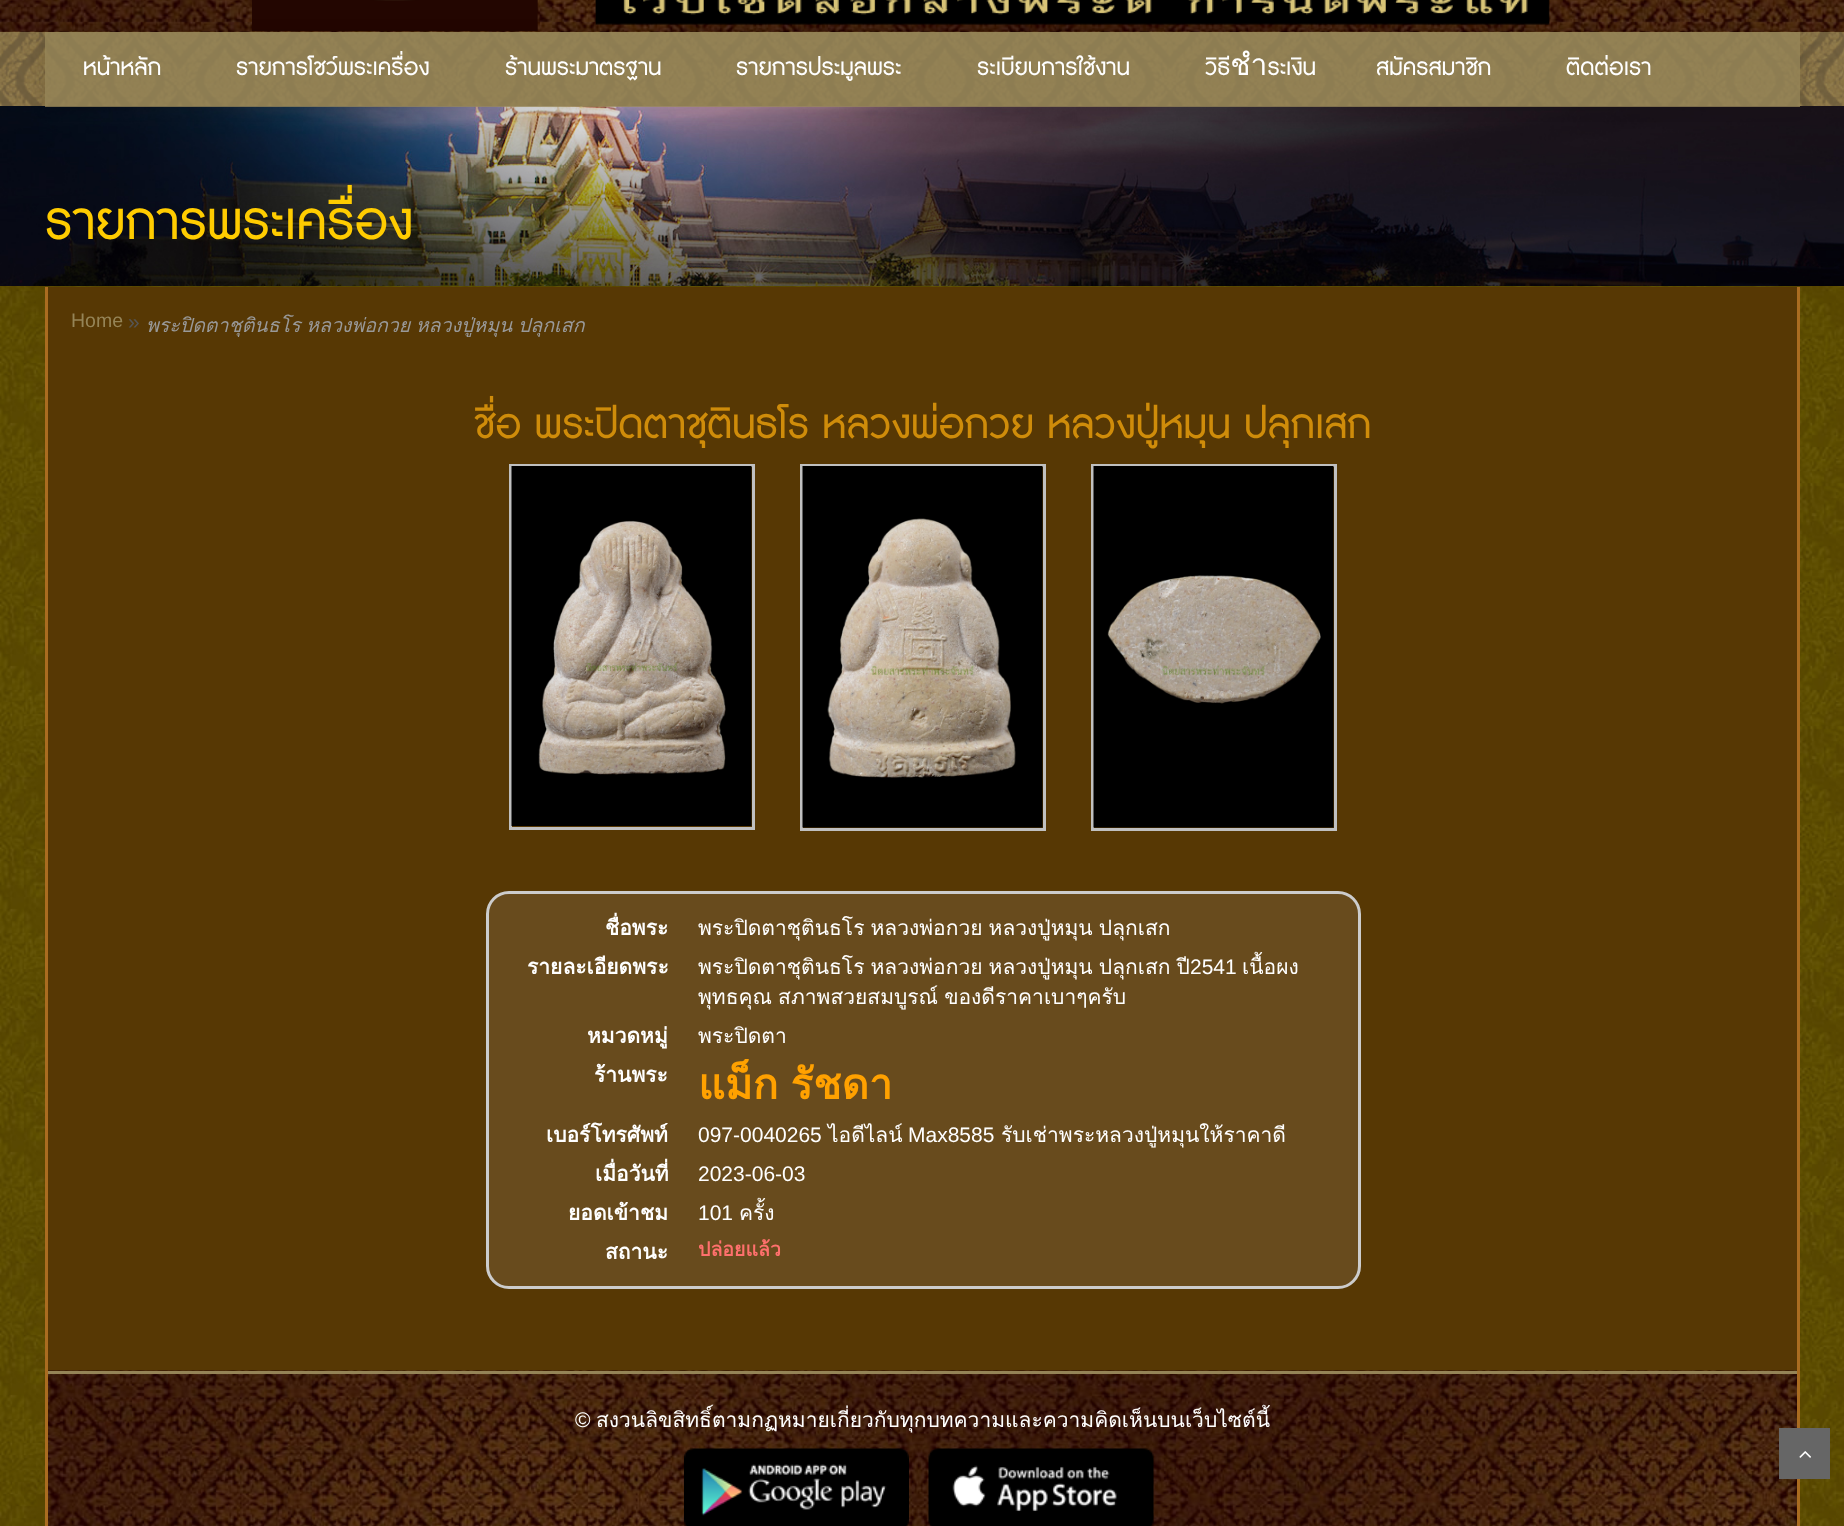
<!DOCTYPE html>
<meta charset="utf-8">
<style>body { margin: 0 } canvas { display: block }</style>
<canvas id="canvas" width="1844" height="1526"></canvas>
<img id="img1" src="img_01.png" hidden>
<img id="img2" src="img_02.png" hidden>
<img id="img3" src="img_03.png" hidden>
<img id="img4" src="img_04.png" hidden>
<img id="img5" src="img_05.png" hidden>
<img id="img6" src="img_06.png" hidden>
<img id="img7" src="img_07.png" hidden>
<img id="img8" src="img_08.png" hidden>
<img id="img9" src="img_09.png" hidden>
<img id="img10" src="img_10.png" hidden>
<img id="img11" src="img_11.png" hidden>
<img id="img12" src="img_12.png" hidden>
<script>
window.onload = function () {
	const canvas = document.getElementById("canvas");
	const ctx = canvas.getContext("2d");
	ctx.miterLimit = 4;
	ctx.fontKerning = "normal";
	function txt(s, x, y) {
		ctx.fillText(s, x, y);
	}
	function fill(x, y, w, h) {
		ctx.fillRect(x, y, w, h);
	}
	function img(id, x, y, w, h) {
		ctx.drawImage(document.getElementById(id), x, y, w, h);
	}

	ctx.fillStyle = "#FFFFFF";
	fill(0, 0, 1844, 1526);
	img("img1", 0, 286, 1844, 1240);
	img("img2", 0, 0, 1844, 106);
	img("img3", 252, 0, 1298, 31);
	ctx.fillStyle = "rgba(149, 132, 87, 0.8)";
	fill(0, 32, 1844, 74);
	img("img4", 0, 31, 1844, 75);
	img("img5", 0, 106, 1844, 180);
	ctx.save();
	ctx.beginPath();
	ctx.moveTo(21, 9);
	ctx.lineTo(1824, 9);
	ctx.lineTo(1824, 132);
	ctx.lineTo(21, 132);
	ctx.closePath();
	ctx.moveTo(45, 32);
	ctx.lineTo(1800, 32);
	ctx.lineTo(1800, 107);
	ctx.lineTo(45, 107);
	ctx.closePath();
	ctx.clip("evenodd");
	ctx.fillStyle = "rgba(0, 0, 0, 0.1)";
	ctx.filter = "blur(7.5px)";
	ctx.beginPath();
	ctx.rect(45, 33, 1755, 75);
	ctx.fill();
	ctx.filter = "none";
	ctx.restore();
	fill(45, 32, 1755, 75);
	ctx.fillStyle = "#573804";
	fill(48, 287, 1749, 1084);
	ctx.fillStyle = "#AA6C20";
	fill(1797, 287, 3, 1239);
	fill(45, 287, 3, 1239);
	ctx.strokeStyle = "#C0C0C0";
	ctx.lineWidth = 3;
	ctx.strokeRect(510.5, 465.5, 243, 363);
	img("img6", 511, 466, 241, 360);
	ctx.strokeRect(801.5, 465.5, 243, 364);
	img("img7", 802, 466, 241, 362);
	ctx.strokeRect(1092.5, 465.5, 243, 364);
	img("img8", 1093, 466, 241, 362);
	ctx.fillStyle = "#684B1D";
	ctx.beginPath();
	ctx.roundRect(487.5, 892.5, 872, 395, 21.5);
	ctx.fill();
	ctx.strokeStyle = "#CCCCCC";
	ctx.stroke();
	img("img9", 48, 1370, 1749, 156);
	ctx.fillStyle = "#958457";
	fill(48, 1371, 1749, 3);
	img("img10", 684, 1448, 225, 78);
	img("img11", 928, 1448, 226, 78);
	ctx.fillStyle = "#666666";
	fill(1779, 1428, 51, 51);
	img("img12", 1799, 1451, 12, 7);
	ctx.font = "30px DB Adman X";
	ctx.fillStyle = "#FFFFFF";
	txt("หน้าหลัก", 83, 75);
	txt("รายการโชว์พระเครื่อง", 236, 75);
	txt("ร้านพระมาตรฐาน", 505, 75);
	txt("รายการประมูลพระ", 736, 75);
	txt("ระเบียบการใช้งาน", 977, 75);
	txt("วิธีชำระเงิน", 1205, 75);
	txt("สมัครสมาชิก", 1376, 75);
	txt("ติดต่อเรา", 1566, 75);
	ctx.font = "67.5px DB Adman X";
	ctx.fillStyle = "#FFCC00";
	txt("รายการพระเครื่อง", 45, 239);
	ctx.font = "19.5px Liberation Sans";
	ctx.fillStyle = "#958457";
	txt("Home", 71, 327);
	ctx.font = "21px Liberation Sans";
	ctx.fillStyle = "#555555";
	txt("»", 128, 329);
	ctx.wordSpacing = "-1px";
	ctx.font = "italic 19.5px Loma";
	ctx.fillStyle = "#999999";
	txt("พระปิดตาชุตินธโร หลวงพ่อกวย หลวงปู่หมุน ปลุกเสก", 146, 332);
	ctx.wordSpacing = "0px";
	ctx.font = "52.5px DB Adman X";
	ctx.fillStyle = "#CF8C0A";
	txt("ชื่อ พระปิดตาชุตินธโร หลวงพ่อกวย หลวงปู่หมุน ปลุกเสก", 474, 438);
	ctx.font = "bold 21px Loma";
	ctx.fillStyle = "#FFFFFF";
	txt("ชื่อพระ", 605, 935);
	ctx.wordSpacing = "-1px";
	ctx.font = "21px Loma";
	txt("พระปิดตาชุตินธโร หลวงพ่อกวย หลวงปู่หมุน ปลุกเสก", 698, 935);
	ctx.wordSpacing = "0px";
	ctx.font = "bold 21px Loma";
	txt("รายละเอียดพระ", 527, 974);
	ctx.wordSpacing = "-1px";
	ctx.font = "21px Loma";
	txt("พระปิดตาชุตินธโร หลวงพ่อกวย หลวงปู่หมุน ปลุกเสก ปี", 698, 974);
	ctx.wordSpacing = "0px";
	ctx.font = "21px Liberation Sans";
	txt("2541", 1190, 974);
	ctx.font = "21px Loma";
	txt("เนื้อผง", 1242, 974);
	ctx.wordSpacing = "-1px";
	txt("พุทธคุณ สภาพสวยสมบูรณ์ ของดีราคาเบาๆครับ", 698, 1004);
	ctx.wordSpacing = "0px";
	ctx.font = "bold 21px Loma";
	txt("หมวดหมู่", 587, 1043);
	ctx.font = "21px Loma";
	txt("พระปิดตา", 698, 1043);
	ctx.font = "bold 21px Loma";
	txt("ร้านพระ", 594, 1082);
	ctx.wordSpacing = "-2px";
	ctx.font = "bold 42px Loma";
	ctx.fillStyle = "#FFA100";
	txt("แม็ก รัชดา", 698, 1099);
	ctx.wordSpacing = "0px";
	ctx.font = "bold 21px Loma";
	ctx.fillStyle = "#FFFFFF";
	txt("เบอร์โทรศัพท์", 546, 1142);
	ctx.font = "21px Liberation Sans";
	txt("097-0040265", 698, 1142);
	ctx.font = "21px Loma";
	txt("ไอดีไลน์", 828, 1142);
	ctx.font = "21px Liberation Sans";
	txt("Max8585", 908, 1142);
	ctx.font = "21px Loma";
	txt("รับเช่าพระหลวงปู่หมุนให้ราคาดี", 1001, 1142);
	ctx.font = "bold 21px Loma";
	txt("เมื่อวันที่", 595, 1181);
	ctx.font = "21px Liberation Sans";
	txt("2023-06-03", 698, 1181);
	ctx.font = "bold 21px Loma";
	txt("ยอดเข้าชม", 568, 1220);
	ctx.font = "21px Liberation Sans";
	txt("101", 698, 1220);
	ctx.font = "21px Loma";
	txt("ครั้ง", 739, 1220);
	ctx.font = "bold 21px Loma";
	txt("สถานะ", 605, 1259);
	ctx.font = "bold 19.5px Loma";
	ctx.fillStyle = "#FF706D";
	txt("ปล่อยแล้ว", 698, 1256);
	ctx.font = "21px Liberation Sans";
	ctx.fillStyle = "#FFFFFF";
	txt("©", 575, 1427);
	ctx.font = "21px Loma";
	txt("สงวนลิขสิทธิ์ตามกฏหมายเกี่ยวกับทุกบทความและความคิดเห็นบนเว็บไซต์นี้", 596, 1427);
};
</script>
